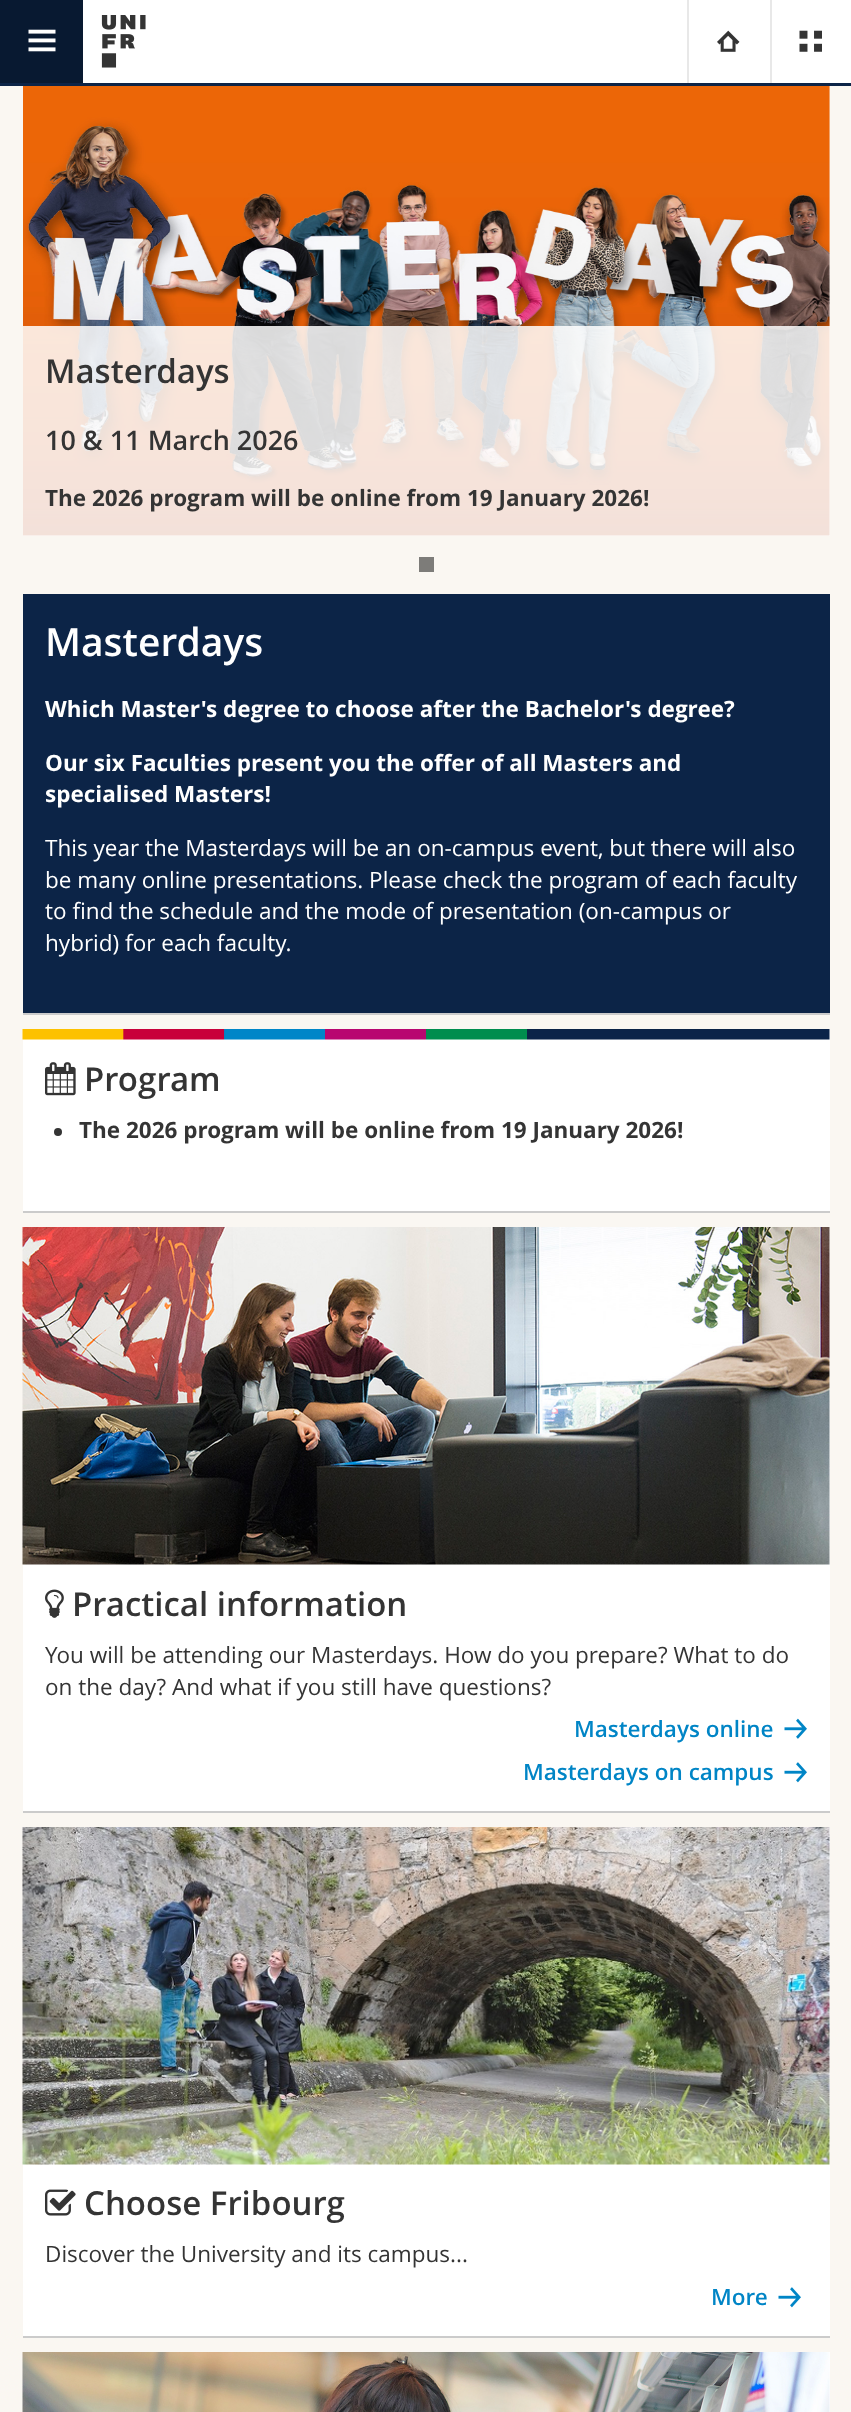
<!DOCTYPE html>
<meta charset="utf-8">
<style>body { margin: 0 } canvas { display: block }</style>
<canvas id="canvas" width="851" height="2412"></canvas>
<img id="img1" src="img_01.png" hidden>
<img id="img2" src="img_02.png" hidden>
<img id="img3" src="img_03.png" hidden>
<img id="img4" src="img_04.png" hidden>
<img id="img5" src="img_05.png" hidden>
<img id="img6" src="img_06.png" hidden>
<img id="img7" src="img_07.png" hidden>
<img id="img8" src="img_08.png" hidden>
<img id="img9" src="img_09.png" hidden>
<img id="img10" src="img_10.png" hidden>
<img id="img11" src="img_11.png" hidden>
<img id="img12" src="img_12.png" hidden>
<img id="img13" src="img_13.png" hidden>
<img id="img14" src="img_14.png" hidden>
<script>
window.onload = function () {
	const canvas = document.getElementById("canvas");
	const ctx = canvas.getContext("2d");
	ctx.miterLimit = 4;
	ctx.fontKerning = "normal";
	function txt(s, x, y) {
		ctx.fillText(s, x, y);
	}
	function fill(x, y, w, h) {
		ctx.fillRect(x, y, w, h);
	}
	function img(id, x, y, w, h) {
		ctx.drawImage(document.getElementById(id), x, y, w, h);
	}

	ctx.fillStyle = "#FAF7F2";
	fill(0, 0, 851, 2412);
	ctx.fillStyle = "#FFFFFF";
	fill(83, 0, 768, 83);
	ctx.fillStyle = "#081931";
	fill(0, 0, 83, 83);
	img("img1", 28, 29, 28, 23);
	img("img2", 101, 15, 45, 53);
	ctx.fillStyle = "#E8E8E8";
	fill(687, 0, 2, 83);
	img("img3", 717, 30, 23, 22);
	fill(770, 0, 2, 83);
	img("img4", 799, 30, 23, 22);
	ctx.fillStyle = "#0C2447";
	fill(0, 83, 851, 3);
	img("img5", 23, 86, 807, 450);
	ctx.fillStyle = "rgba(255, 255, 255, 0.85)";
	fill(23, 326, 807, 210);
	ctx.fillStyle = "#7D7C79";
	fill(419, 557, 15, 15);
	ctx.fillStyle = "#0C2447";
	fill(23, 594, 807, 419);
	ctx.fillStyle = "#CBCBCB";
	fill(23, 1013, 807, 2);
	ctx.fillStyle = "#FFFFFF";
	fill(23, 1029, 807, 182);
	ctx.fillStyle = "#CBCBCB";
	fill(23, 1211, 807, 2);
	img("img6", 22, 1029, 808, 11);
	img("img7", 45, 1062, 31, 34);
	ctx.fillStyle = "#343434";
	ctx.beginPath();
	ctx.arc(58, 1132, 4, 0, Math.PI * 2);
	ctx.fill();
	ctx.fillStyle = "#FFFFFF";
	fill(23, 1227, 807, 584);
	ctx.fillStyle = "#CBCBCB";
	fill(23, 1811, 807, 2);
	img("img8", 22, 1227, 808, 338);
	img("img9", 45, 1589, 19, 29);
	img("img10", 784, 1718, 23, 21);
	img("img11", 784, 1762, 23, 21);
	ctx.fillStyle = "#FFFFFF";
	fill(23, 1827, 807, 509);
	ctx.fillStyle = "#CBCBCB";
	fill(23, 2336, 807, 2);
	img("img12", 22, 1827, 808, 338);
	img("img13", 45, 2189, 31, 27);
	img("img11", 778, 2287, 23, 21);
	ctx.fillStyle = "#FFFFFF";
	fill(829, 2352, 1, 60);
	img("img14", 22, 2352, 808, 60);
	ctx.font = "600 33px Open Sans";
	ctx.fillStyle = "#343434";
	txt("Masterdays", 45, 383);
	ctx.font = "600 27px Open Sans";
	txt("10 & 11 March 2026", 45, 450);
	ctx.font = "bold 22.5px Open Sans";
	txt("The 2026 program will be online from 19 January 2026!", 45, 506);
	ctx.font = "600 39px Open Sans";
	ctx.fillStyle = "#FFFFFF";
	txt("Masterdays", 45, 656);
	ctx.font = "bold 22.5px Open Sans";
	txt("Which Master's degree to choose after the Bachelor's degree?", 45, 717);
	txt("Our six Faculties present you the offer of all Masters and", 45, 771);
	txt("specialised Masters!", 45, 802);
	ctx.font = "22.5px Open Sans";
	txt("This year the Masterdays will be an on-campus event, but there will also", 45, 856);
	txt("be many online presentations. Please check the program of each faculty", 45, 888);
	txt("to find the schedule and the mode of presentation (on-campus or", 45, 919);
	txt("hybrid) for each faculty.", 45, 951);
	ctx.font = "600 33px Open Sans";
	ctx.fillStyle = "#343434";
	txt("Program", 84, 1091);
	ctx.font = "bold 22.5px Open Sans";
	txt("The 2026 program will be online from 19 January 2026!", 79, 1138);
	ctx.font = "600 33px Open Sans";
	txt("Practical information", 72, 1616);
	ctx.font = "22.5px Open Sans";
	txt("You will be attending our Masterdays. How do you prepare? What to do", 45, 1663);
	txt("on the day? And what if you still have questions?", 45, 1695);
	ctx.font = "600 22.5px Open Sans";
	ctx.fillStyle = "#0085C6";
	txt("Masterdays online", 574, 1737);
	txt("Masterdays on campus", 523, 1780);
	ctx.font = "600 33px Open Sans";
	ctx.fillStyle = "#343434";
	txt("Choose Fribourg", 84, 2215);
	ctx.font = "22.5px Open Sans";
	txt("Discover the University and its campus...", 45, 2262);
	ctx.font = "600 22.5px Open Sans";
	ctx.fillStyle = "#0085C6";
	txt("More", 711, 2305);
};
</script>
